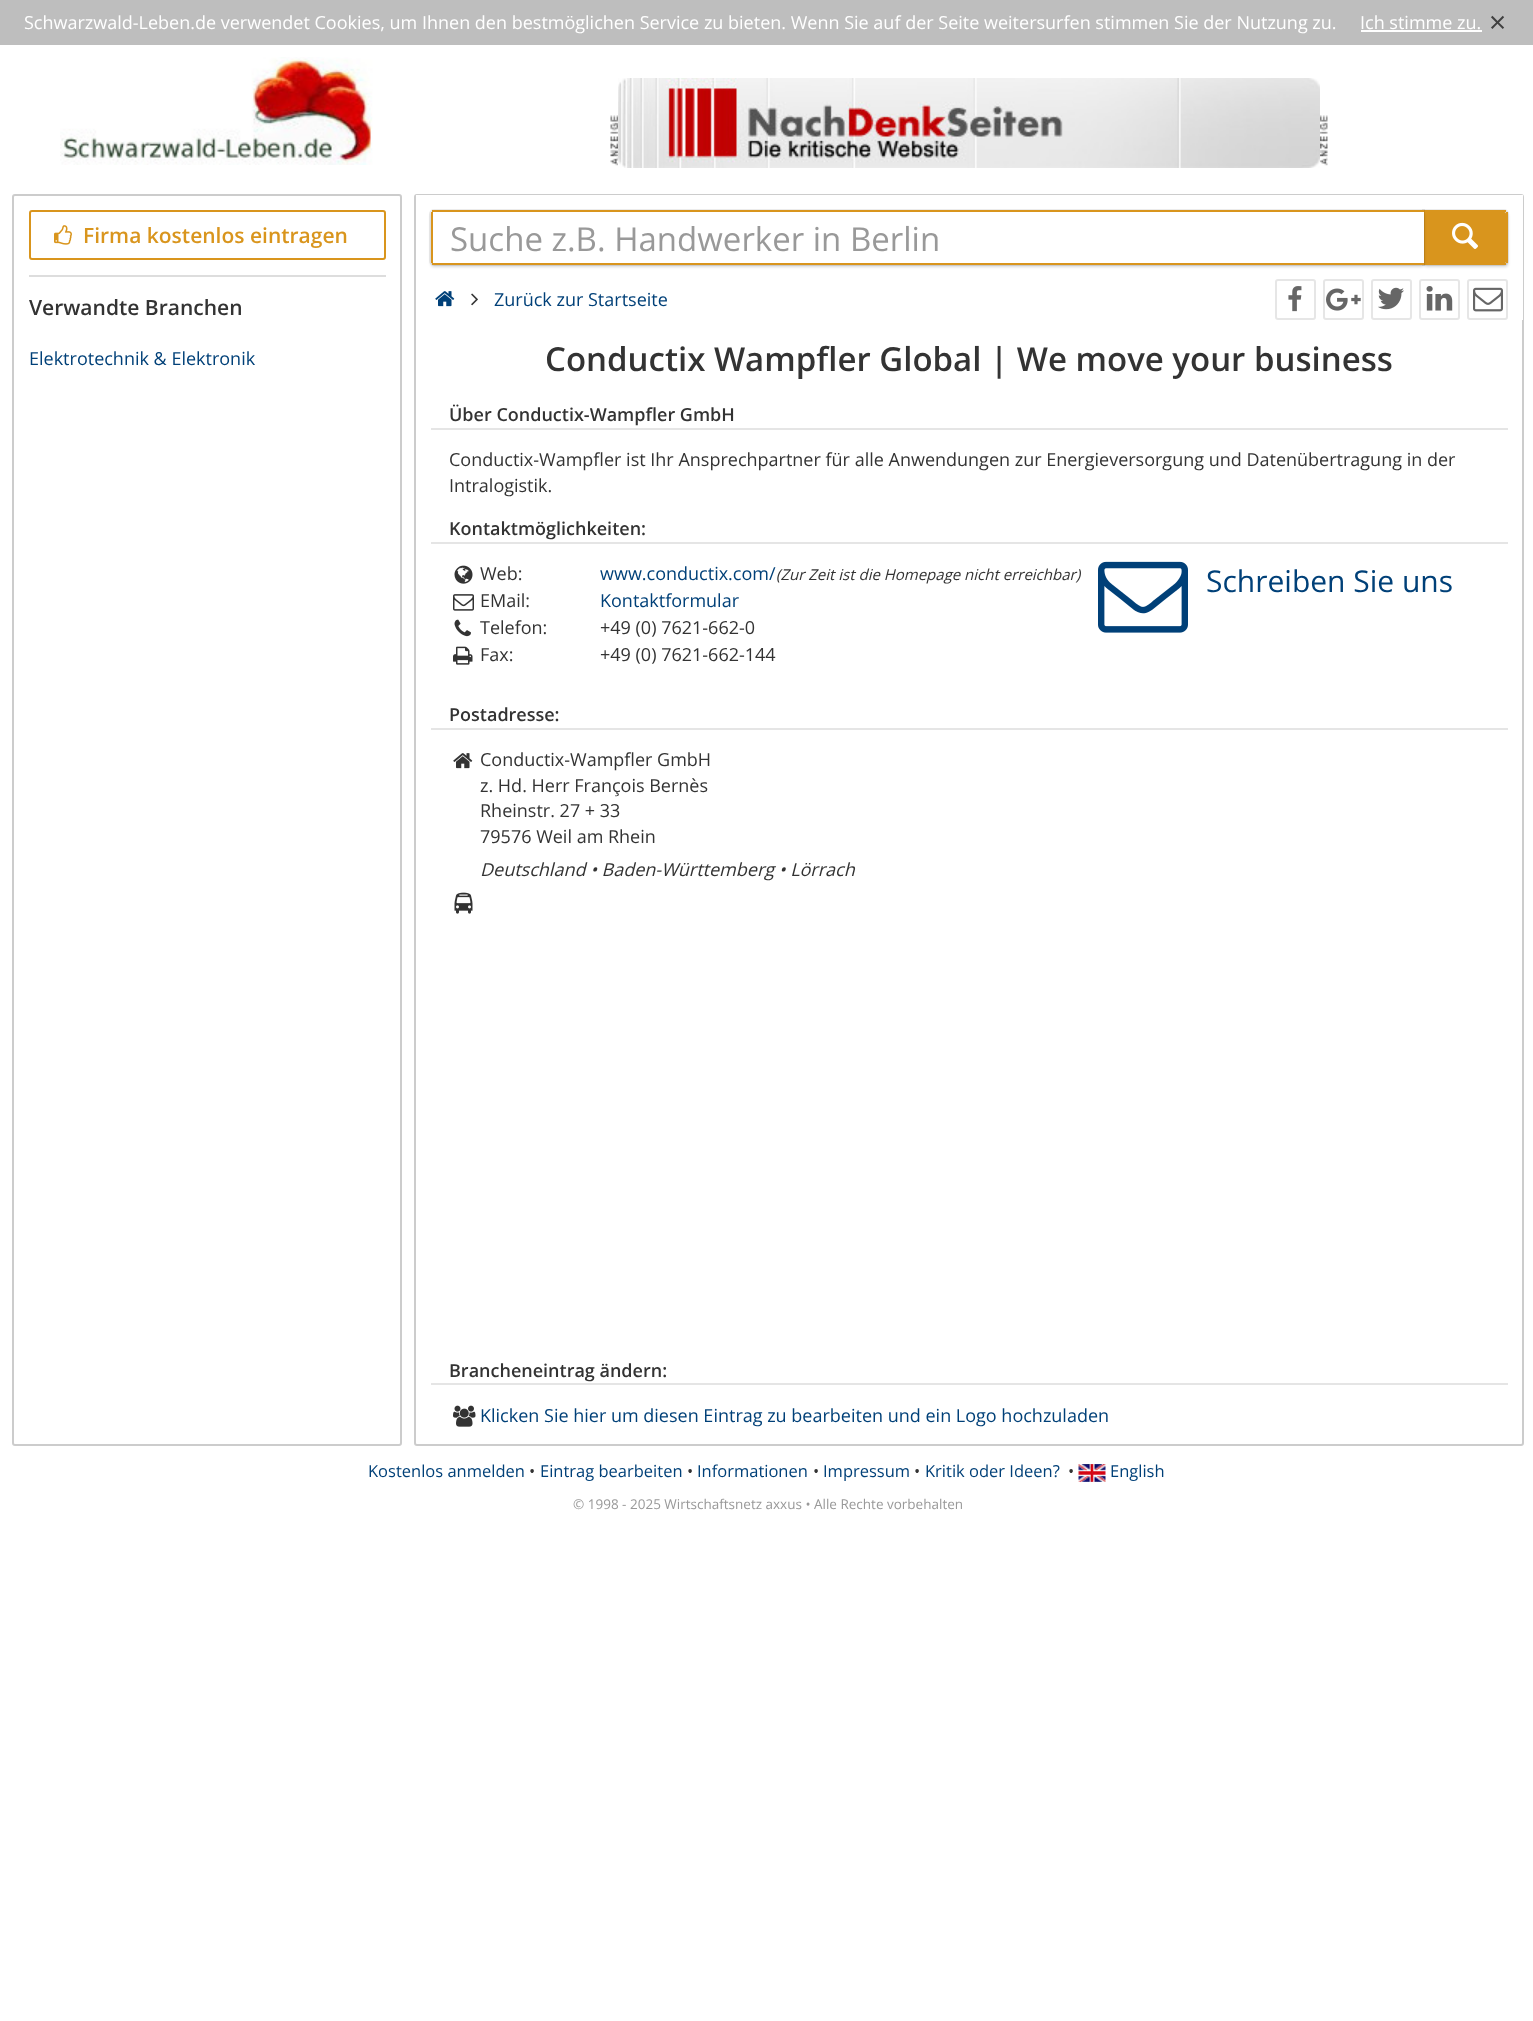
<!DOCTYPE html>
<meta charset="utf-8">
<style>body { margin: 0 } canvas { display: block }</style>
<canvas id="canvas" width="1533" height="2021"></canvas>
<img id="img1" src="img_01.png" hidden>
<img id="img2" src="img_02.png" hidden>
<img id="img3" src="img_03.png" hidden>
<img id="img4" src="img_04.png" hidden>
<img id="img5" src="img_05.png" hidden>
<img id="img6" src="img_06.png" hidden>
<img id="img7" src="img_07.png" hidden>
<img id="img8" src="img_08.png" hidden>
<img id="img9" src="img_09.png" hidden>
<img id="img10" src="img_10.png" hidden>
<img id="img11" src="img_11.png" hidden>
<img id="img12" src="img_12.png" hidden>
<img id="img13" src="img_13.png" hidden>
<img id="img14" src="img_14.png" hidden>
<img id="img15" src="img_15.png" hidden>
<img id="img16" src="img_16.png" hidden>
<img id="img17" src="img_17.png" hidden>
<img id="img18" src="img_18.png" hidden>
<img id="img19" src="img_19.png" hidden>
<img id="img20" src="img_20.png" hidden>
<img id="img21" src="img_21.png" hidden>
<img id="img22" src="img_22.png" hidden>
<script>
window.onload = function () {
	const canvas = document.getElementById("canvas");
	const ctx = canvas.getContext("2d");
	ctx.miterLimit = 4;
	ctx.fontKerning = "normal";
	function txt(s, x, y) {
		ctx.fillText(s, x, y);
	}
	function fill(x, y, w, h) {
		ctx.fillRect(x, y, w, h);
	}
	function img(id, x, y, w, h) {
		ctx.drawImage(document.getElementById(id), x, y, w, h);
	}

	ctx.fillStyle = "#FFFFFF";
	fill(0, 0, 1533, 2021);
	ctx.fillStyle = "#BEBEBE";
	fill(0, 0, 1533, 45);
	ctx.fillStyle = "#FFFFFF";
	fill(1361, 30, 121, 2);
	img("img1", 60, 57, 313, 108);
	img("img2", 610, 115, 8, 51);
	img("img3", 618, 78, 702, 90);
	img("img4", 1320, 115, 8, 51);
	ctx.beginPath();
	ctx.roundRect(13, 195, 388, 1250, 2);
	ctx.strokeStyle = "#CCCCCC";
	ctx.lineWidth = 2;
	ctx.stroke();
	ctx.beginPath();
	ctx.roundRect(30, 211, 355, 48, 2);
	ctx.strokeStyle = "#D9951D";
	ctx.stroke();
	img("img5", 54, 225, 18, 20);
	ctx.fillStyle = "#DDDDDD";
	fill(29, 275, 357, 2);
	ctx.beginPath();
	ctx.roundRect(415, 195, 1108, 1250, 2);
	ctx.strokeStyle = "#CCCCCC";
	ctx.stroke();
	ctx.fillStyle = "#FFFFFF";
	fill(416, 195, 1107, 84);
	ctx.beginPath();
	ctx.roundRect(1423, 210, 85, 55, [0, 4, 4, 0]);
	ctx.strokeStyle = "#EBEBEB";
	ctx.stroke();
	ctx.fillStyle = "rgba(0, 0, 0, 0.16)";
	ctx.filter = "blur(1.5px)";
	ctx.beginPath();
	ctx.roundRect(1424, 213, 84, 54, 3);
	ctx.fill();
	ctx.filter = "none";
	ctx.fillStyle = "#D9951D";
	ctx.beginPath();
	ctx.roundRect(1424, 212, 82, 51, [0, 1.5, 1.5, 0]);
	ctx.fill();
	fill(1424, 210, 82, 2);
	fill(1424, 263, 82, 2);
	ctx.beginPath();
	ctx.roundRect(430, 210, 994, 55, [4, 0, 0, 4]);
	ctx.strokeStyle = "rgba(0, 0, 0, 0.08)";
	ctx.stroke();
	ctx.fillStyle = "rgba(0, 0, 0, 0.16)";
	ctx.filter = "blur(1.5px)";
	ctx.beginPath();
	ctx.roundRect(431, 213, 993, 54, 3);
	ctx.fill();
	ctx.filter = "none";
	ctx.fillStyle = "#FFFFFF";
	fill(433, 212, 991, 51);
	ctx.fillStyle = "#D9951D";
	fill(432, 210, 992, 2);
	fill(432, 263, 992, 2);
	fill(431, 212, 2, 51);
	fill(1506, 212, 2, 51);
	img("img6", 1452, 222, 26, 27);
	ctx.fillStyle = "#FFFFFF";
	fill(1522, 279, 1, 41);
	img("img7", 435, 291, 20, 16);
	img("img8", 471, 293, 7, 13);
	ctx.beginPath();
	ctx.roundRect(1276, 280, 39, 39, 2);
	ctx.strokeStyle = "#E6E6E6";
	ctx.stroke();
	img("img9", 1288, 286, 14, 26);
	ctx.beginPath();
	ctx.roundRect(1324, 280, 39, 39, 2);
	ctx.stroke();
	img("img10", 1326, 288, 35, 23);
	ctx.beginPath();
	ctx.roundRect(1372, 280, 39, 39, 2);
	ctx.stroke();
	img("img11", 1378, 287, 26, 23);
	ctx.beginPath();
	ctx.roundRect(1420, 280, 39, 39, 2);
	ctx.stroke();
	img("img12", 1426, 286, 27, 25);
	ctx.beginPath();
	ctx.roundRect(1468, 280, 39, 39, 2);
	ctx.stroke();
	img("img13", 1473, 287, 30, 25);
	ctx.fillStyle = "#E5E5E5";
	fill(431, 428, 1077, 2);
	fill(431, 542, 1077, 2);
	img("img14", 454, 565, 19, 19);
	img("img15", 453, 594, 21, 17);
	img("img16", 454, 619, 17, 18);
	img("img17", 453, 646, 20, 19);
	img("img18", 1098, 561, 90, 72);
	fill(431, 728, 1077, 2);
	img("img19", 453, 753, 20, 16);
	img("img20", 454, 892, 19, 22);
	fill(431, 1383, 1077, 2);
	img("img21", 453, 1405, 23, 22);
	img("img22", 1078, 1464, 28, 18);
	ctx.font = "18px Open Sans";
	ctx.fillStyle = "#FFFFFF";
	txt("Schwarzwald-Leben.de verwendet Cookies, um Ihnen den bestmöglichen Service zu bieten. Wenn Sie auf der Seite weitersurfen stimmen Sie der Nutzung zu.", 24, 29);
	txt("Ich stimme zu.", 1360, 29);
	ctx.font = "30px Open Sans";
	ctx.fillStyle = "#404040";
	txt("×", 1489, 33);
	ctx.font = "600 21px Open Sans";
	ctx.fillStyle = "#D9951D";
	txt("Firma kostenlos eintragen", 83, 243);
	ctx.fillStyle = "#333333";
	txt("Verwandte Branchen", 29, 315);
	ctx.font = "18px Open Sans";
	ctx.fillStyle = "#004078";
	txt("Elektrotechnik & Elektronik", 29, 365);
	ctx.font = "33px Open Sans";
	ctx.fillStyle = "#999999";
	txt("Suche z.B. Handwerker in Berlin", 450, 251);
	ctx.font = "18px Open Sans";
	ctx.fillStyle = "#004078";
	txt("Zurück zur Startseite", 494, 306);
	ctx.font = "600 33px Open Sans";
	ctx.fillStyle = "#333333";
	txt("Conductix Wampfler Global | We move your business", 545, 371);
	ctx.font = "600 18px Open Sans";
	txt("Über Conductix-Wampfler GmbH", 449, 421);
	ctx.font = "18px Open Sans";
	txt("Conductix-Wampfler ist Ihr Ansprechpartner für alle Anwendungen zur Energieversorgung und Datenübertragung in der", 449, 466);
	txt("Intralogistik.", 449, 492);
	ctx.font = "600 18px Open Sans";
	txt("Kontaktmöglichkeiten:", 449, 535);
	ctx.font = "18px Open Sans";
	txt("Web:", 480, 580);
	ctx.fillStyle = "#004078";
	txt("www.conductix.com/", 600, 580);
	ctx.font = "italic 15px Open Sans";
	ctx.fillStyle = "#333333";
	txt("(Zur Zeit ist die Homepage nicht erreichbar)", 776, 580);
	ctx.font = "18px Open Sans";
	txt("EMail:", 480, 607);
	ctx.fillStyle = "#004078";
	txt("Kontaktformular", 600, 607);
	ctx.fillStyle = "#333333";
	txt("Telefon:", 480, 634);
	txt("+49 (0) 7621-662-0", 600, 634);
	txt("Fax:", 480, 661);
	txt("+49 (0) 7621-662-144", 600, 661);
	ctx.font = "30px Open Sans";
	ctx.fillStyle = "#004078";
	txt("Schreiben Sie uns", 1206, 592);
	ctx.font = "600 18px Open Sans";
	ctx.fillStyle = "#333333";
	txt("Postadresse:", 449, 721);
	ctx.font = "18px Open Sans";
	txt("Conductix-Wampfler GmbH", 480, 766);
	txt("z. Hd. Herr François Bernès", 480, 792);
	txt("Rheinstr. 27 + 33", 480, 817);
	txt("79576 Weil am Rhein", 480, 843);
	ctx.font = "italic 18px Open Sans";
	txt("Deutschland • Baden-Württemberg • Lörrach", 480, 876);
	ctx.font = "600 18px Open Sans";
	txt("Brancheneintrag ändern:", 449, 1377);
	ctx.font = "18px Open Sans";
	ctx.fillStyle = "#004078";
	txt("Klicken Sie hier um diesen Eintrag zu bearbeiten und ein Logo hochzuladen", 480, 1422);
	ctx.font = "16.5px Open Sans";
	txt("Kostenlos anmelden", 368, 1477);
	ctx.fillStyle = "#333333";
	txt("•", 529, 1477);
	ctx.fillStyle = "#004078";
	txt("Eintrag bearbeiten", 540, 1477);
	ctx.fillStyle = "#333333";
	txt("•", 687, 1477);
	ctx.fillStyle = "#004078";
	txt("Informationen", 697, 1477);
	ctx.fillStyle = "#333333";
	txt("•", 813, 1477);
	ctx.fillStyle = "#004078";
	txt("Impressum", 823, 1477);
	ctx.fillStyle = "#333333";
	txt("•", 914, 1477);
	ctx.fillStyle = "#004078";
	txt("Kritik oder Ideen?", 925, 1477);
	ctx.fillStyle = "#333333";
	txt("•", 1068, 1477);
	ctx.fillStyle = "#004078";
	txt("English", 1110, 1477);
	ctx.font = "13.5px Open Sans";
	ctx.fillStyle = "#999999";
	txt("© 1998 - 2025 Wirtschaftsnetz axxus • Alle Rechte vorbehalten", 573, 1509);
};
</script>
